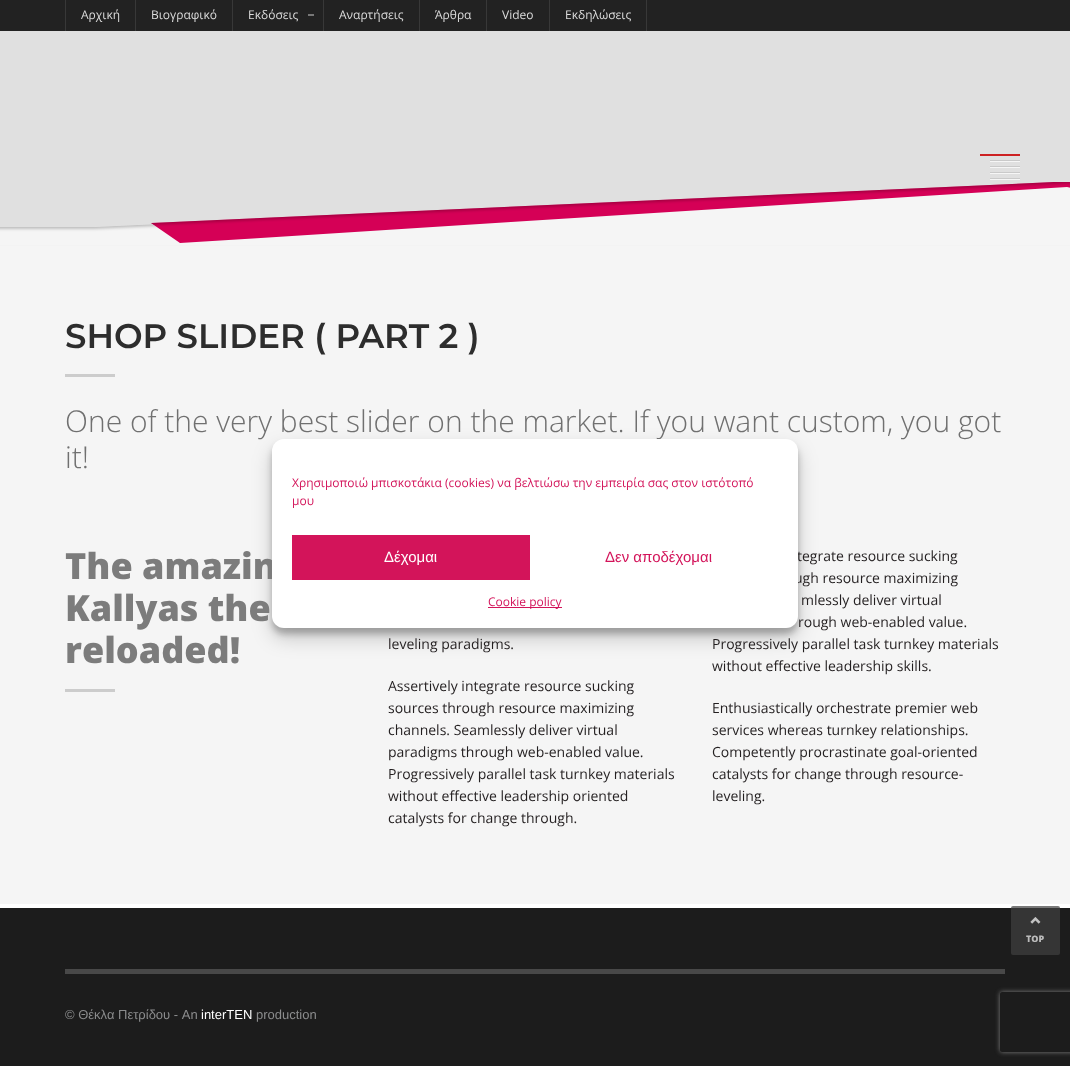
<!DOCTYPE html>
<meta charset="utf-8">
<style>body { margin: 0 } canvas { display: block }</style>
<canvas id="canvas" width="1070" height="1066"></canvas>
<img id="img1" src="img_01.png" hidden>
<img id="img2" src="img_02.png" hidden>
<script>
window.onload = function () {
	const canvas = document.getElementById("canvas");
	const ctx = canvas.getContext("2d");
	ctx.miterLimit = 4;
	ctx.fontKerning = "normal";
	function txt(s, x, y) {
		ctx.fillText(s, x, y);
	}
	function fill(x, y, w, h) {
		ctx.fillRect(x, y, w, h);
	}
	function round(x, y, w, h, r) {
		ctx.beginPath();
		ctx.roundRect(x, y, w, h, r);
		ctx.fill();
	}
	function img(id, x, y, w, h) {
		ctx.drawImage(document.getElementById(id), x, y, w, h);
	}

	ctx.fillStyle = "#F5F5F5";
	fill(0, 0, 1070, 1066);
	ctx.fillStyle = "#222222";
	fill(0, 0, 1070, 31);
	ctx.fillStyle = "#383838";
	fill(65, 0, 1, 31);
	fill(135, 0, 1, 31);
	fill(232, 0, 1, 31);
	ctx.fillStyle = "#777777";
	fill(308, 14, 6, 2);
	ctx.fillStyle = "#383838";
	fill(323, 0, 1, 31);
	fill(419, 0, 1, 31);
	fill(486, 0, 1, 31);
	fill(646, 0, 1, 31);
	fill(549, 0, 1, 31);
	ctx.fillStyle = "#E0E0E0";
	fill(0, 31, 1070, 196);
	ctx.fillStyle = "#CD2122";
	fill(980, 154, 40, 2);
	ctx.fillStyle = "#CACACA";
	fill(990, 160, 30, 1);
	ctx.fillStyle = "#F6F6F6";
	fill(990, 161, 30, 1);
	ctx.fillStyle = "#CACACA";
	fill(990, 166, 30, 1);
	ctx.fillStyle = "#F6F6F6";
	fill(990, 167, 30, 1);
	ctx.fillStyle = "#CACACA";
	fill(990, 172, 30, 1);
	ctx.fillStyle = "#F6F6F6";
	fill(990, 173, 30, 1);
	ctx.fillStyle = "#CACACA";
	fill(990, 178, 30, 1);
	ctx.fillStyle = "#F6F6F6";
	fill(990, 179, 30, 1);
	img("img1", 0, 182, 1070, 64);
	ctx.fillStyle = "#CCCCCC";
	fill(65, 374, 50, 3);
	fill(65, 689, 50, 3);
	ctx.fillStyle = "#1C1C1C";
	fill(0, 908, 1070, 158);
	ctx.fillStyle = "#FFFFFF";
	fill(0, 904, 1070, 4);
	ctx.fillStyle = "#484848";
	fill(65, 969, 940, 5);
	ctx.fillStyle = "rgba(0, 0, 0, 0.23)";
	ctx.filter = "blur(3px)";
	ctx.beginPath();
	ctx.roundRect(272, 445, 526, 189, 12);
	ctx.fill();
	ctx.filter = "none";
	ctx.fillStyle = "rgba(0, 0, 0, 0.19)";
	ctx.filter = "blur(10px)";
	ctx.beginPath();
	ctx.roundRect(272, 449, 526, 189, 12);
	ctx.fill();
	ctx.filter = "none";
	ctx.fillStyle = "rgba(64, 64, 64, 0.7)";
	round(1011, 906, 49, 49, 2);
	img("img2", 1030, 917, 11, 7);
	ctx.save();
	ctx.beginPath();
	ctx.moveTo(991, 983);
	ctx.lineTo(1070, 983);
	ctx.lineTo(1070, 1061);
	ctx.lineTo(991, 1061);
	ctx.closePath();
	ctx.moveTo(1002, 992);
	ctx.lineTo(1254, 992);
	ctx.bezierCurveTo(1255, 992, 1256, 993, 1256, 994);
	ctx.lineTo(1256, 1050);
	ctx.bezierCurveTo(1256, 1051, 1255, 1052, 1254, 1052);
	ctx.lineTo(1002, 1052);
	ctx.bezierCurveTo(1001, 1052, 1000, 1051, 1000, 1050);
	ctx.lineTo(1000, 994);
	ctx.bezierCurveTo(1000, 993, 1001, 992, 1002, 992);
	ctx.closePath();
	ctx.clip("evenodd");
	ctx.fillStyle = "#808080";
	ctx.filter = "blur(2.5px)";
	ctx.beginPath();
	ctx.roundRect(1000, 992, 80, 60, 2);
	ctx.fill();
	ctx.filter = "none";
	ctx.restore();
	ctx.font = "12px Open Sans";
	ctx.fillStyle = "#DDDDDD";
	txt("Αρχική", 81, 19);
	txt("Βιογραφικό", 151, 19);
	txt("Εκδόσεις", 248, 19);
	txt("Αναρτήσεις", 339, 19);
	txt("Άρθρα", 435, 19);
	txt("Video", 502, 19);
	txt("Εκδηλώσεις", 565, 19);
	ctx.font = "600 34px Montserrat";
	ctx.fillStyle = "#2D2D2D";
	txt("SHOP SLIDER ( PART 2 )", 65, 348);
	ctx.font = "300 30px Open Sans";
	ctx.fillStyle = "#707070";
	txt("One of the very best slider on the market. If you want custom, you got", 65, 432);
	txt("it!", 65, 468);
	ctx.font = "800 36px Open Sans";
	ctx.fillStyle = "#7C7C7C";
	txt("The amazin", 65, 579);
	txt("Kallyas the", 65, 621);
	txt("reloaded!", 65, 663);
	ctx.font = "14px Open Sans";
	ctx.fillStyle = "#231F20";
	txt("tegrate resource sucking", 797, 561);
	txt("ugh resource maximizing", 794, 583);
	txt("mlessly deliver virtual", 801, 605);
	txt("rough web-enabled value.", 798, 627);
	txt("Progressively parallel task turnkey materials", 712, 649);
	txt("without effective leadership skills.", 712, 671);
	txt("Enthusiastically orchestrate premier web", 712, 713);
	txt("services whereas turnkey relationships.", 712, 735);
	txt("Competently procrastinate goal-oriented", 712, 757);
	txt("catalysts for change through resource-", 712, 779);
	txt("leveling.", 712, 801);
	txt("leveling paradigms.", 388, 649);
	txt("Assertively integrate resource sucking", 388, 691);
	txt("sources through resource maximizing", 388, 713);
	txt("channels. Seamlessly deliver virtual", 388, 735);
	txt("paradigms through web-enabled value.", 388, 757);
	txt("Progressively parallel task turnkey materials", 388, 779);
	txt("without effective leadership oriented", 388, 801);
	txt("catalysts for change through.", 388, 823);
	ctx.font = "13px Liberation Sans";
	ctx.fillStyle = "#8B8C8D";
	txt("© Θέκλα Πετρίδου - An", 65, 1019);
	ctx.fillStyle = "#FFFFFF";
	txt("interTEN", 201, 1019);
	ctx.fillStyle = "#8B8C8D";
	txt("production", 256, 1019);
	ctx.fillStyle = "#FFFFFF";
	round(272, 439, 526, 189, 12);
	ctx.font = "12px Open Sans";
	ctx.fillStyle = "#D3145A";
	txt("Χρησιμοποιώ μπισκοτάκια (cookies) να βελτιώσω την εμπειρία σας στον ιστότοπό", 292, 487);
	txt("μου", 292, 505);
	fill(292, 535, 238, 45);
	ctx.font = "15px Liberation Sans";
	ctx.fillStyle = "#FFFFFF";
	txt("Δέχομαι", 384, 562);
	ctx.fillStyle = "#D3145A";
	txt("Δεν αποδέχομαι", 605, 562);
	fill(488, 607, 74, 1);
	ctx.font = "12px Open Sans";
	txt("Cookie policy", 488, 606);
	ctx.font = "800 9px Open Sans";
	ctx.fillStyle = "#BBBBBB";
	txt("TOP", 1026, 942);
};
</script>
